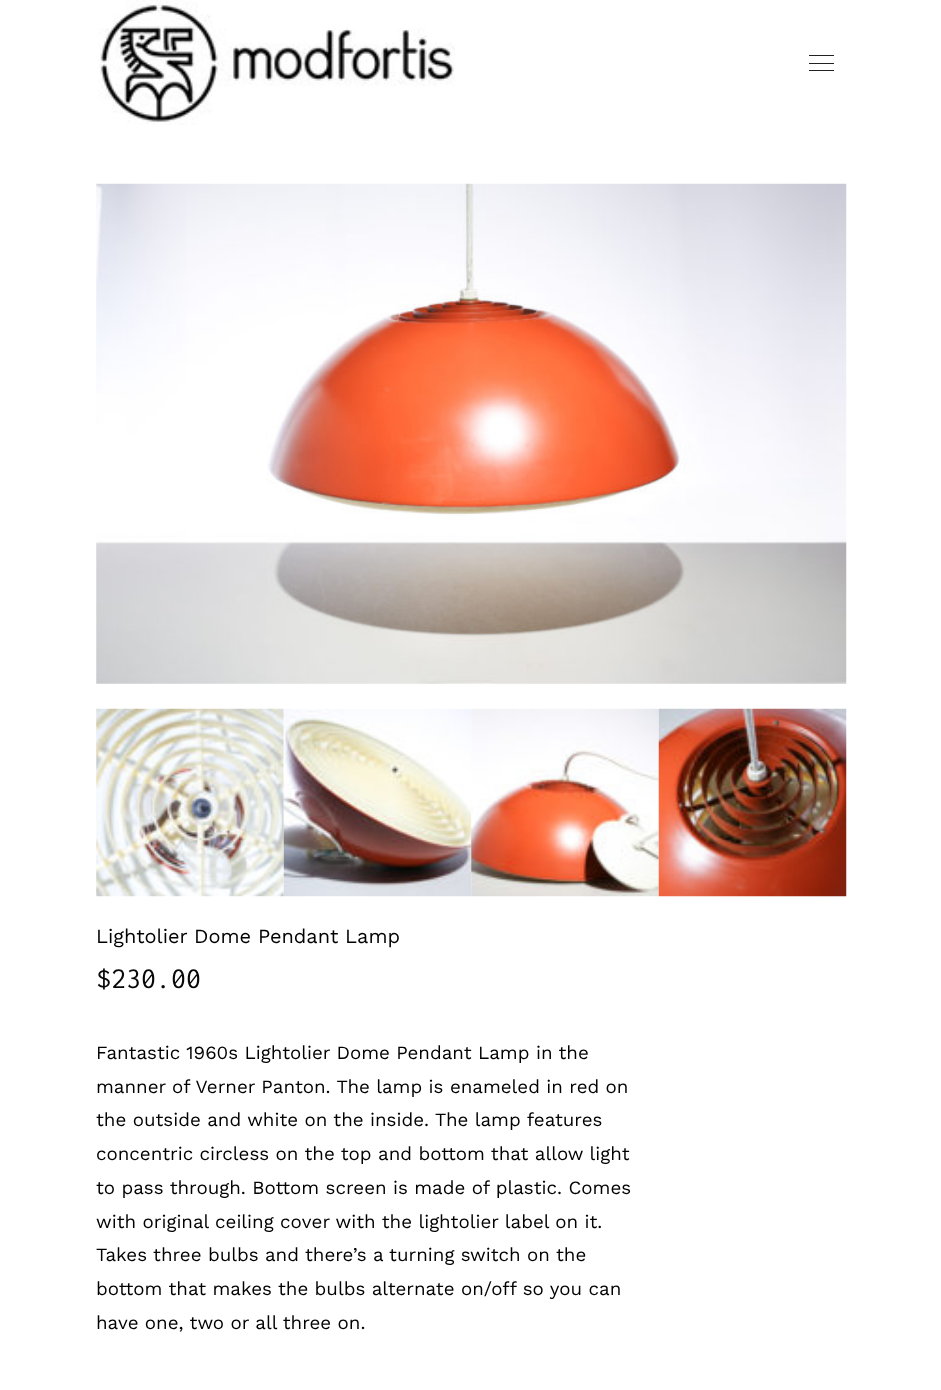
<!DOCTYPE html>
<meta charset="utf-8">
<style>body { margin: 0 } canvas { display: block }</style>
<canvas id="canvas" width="941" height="1390"></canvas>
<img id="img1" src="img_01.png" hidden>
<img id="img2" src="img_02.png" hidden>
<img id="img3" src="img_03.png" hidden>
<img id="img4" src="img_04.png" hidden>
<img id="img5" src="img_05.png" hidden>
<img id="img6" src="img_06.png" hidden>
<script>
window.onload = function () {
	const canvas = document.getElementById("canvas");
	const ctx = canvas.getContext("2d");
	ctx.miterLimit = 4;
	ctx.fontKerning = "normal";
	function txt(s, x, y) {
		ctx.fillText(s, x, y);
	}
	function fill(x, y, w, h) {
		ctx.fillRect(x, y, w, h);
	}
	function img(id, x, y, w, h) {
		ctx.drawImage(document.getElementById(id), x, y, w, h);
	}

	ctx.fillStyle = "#FFFFFF";
	fill(0, 0, 941, 1390);
	img("img1", 98, 0, 357, 125);
	ctx.fillStyle = "#212121";
	fill(809, 63, 25, 1);
	fill(809, 55, 25, 1);
	fill(809, 70, 25, 1);
	img("img2", 96, 183, 751, 501);
	img("img3", 96, 708, 188, 189);
	img("img4", 283, 709, 189, 188);
	img("img5", 471, 708, 188, 189);
	img("img6", 658, 708, 189, 189);
	ctx.font = "20px Work Sans";
	ctx.fillStyle = "#000000";
	txt("Lightolier Dome Pendant Lamp", 96, 943);
	ctx.font = "30px Inconsolata";
	ctx.fillStyle = "#080808";
	txt("$230.00", 96, 988);
	ctx.font = "18.75px Work Sans";
	ctx.fillStyle = "#000000";
	txt("Fantastic 1960s Lightolier Dome Pendant Lamp in the", 96, 1059);
	txt("manner of Verner Panton. The lamp is enameled in red on", 96, 1093);
	txt("the outside and white on the inside. The lamp features", 96, 1126);
	txt("concentric circless on the top and bottom that allow light", 96, 1160);
	txt("to pass through. Bottom screen is made of plastic. Comes", 96, 1194);
	txt("with original ceiling cover with the lightolier label on it.", 96, 1228);
	txt("Takes three bulbs and there’s a turning switch on the", 96, 1261);
	txt("bottom that makes the bulbs alternate on/off so you can", 96, 1295);
	txt("have one, two or all three on.", 96, 1329);
};
</script>
